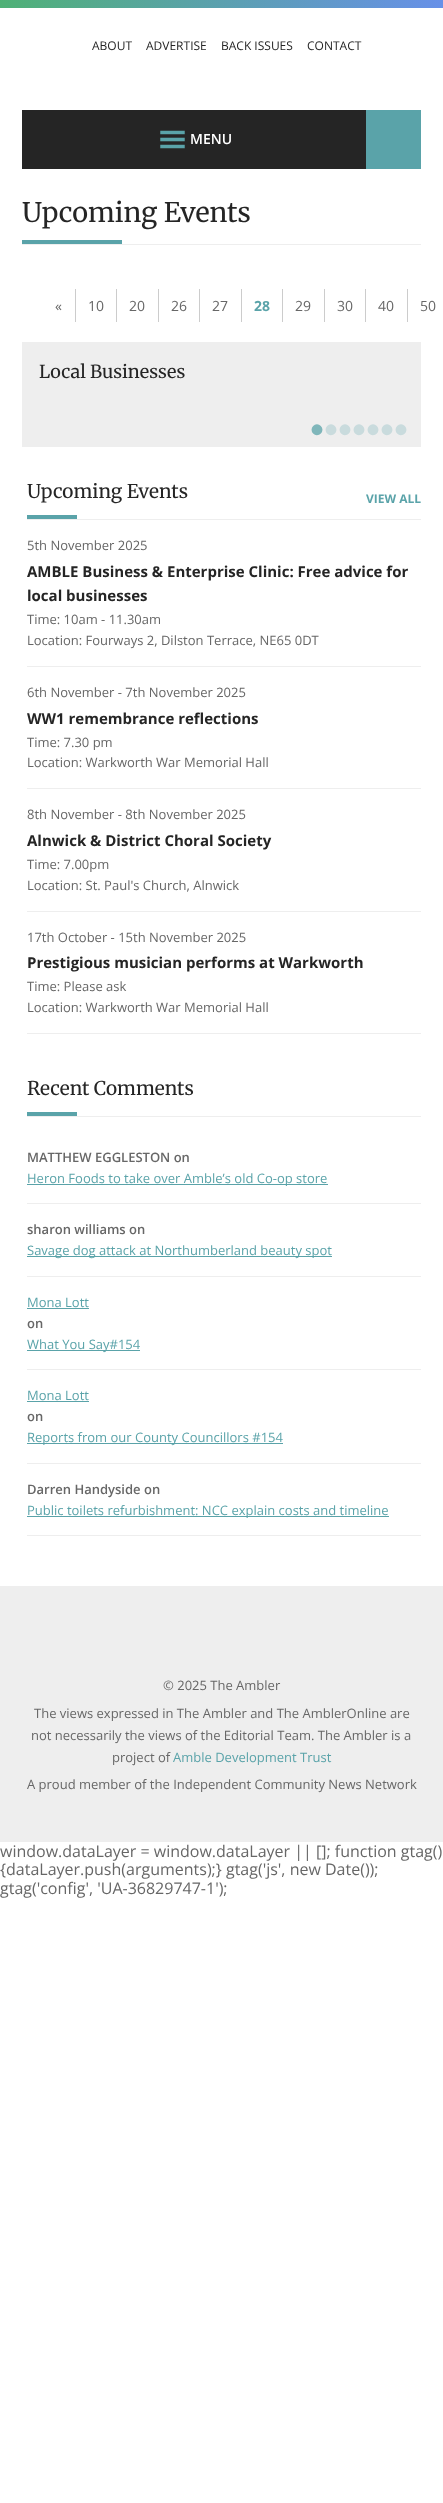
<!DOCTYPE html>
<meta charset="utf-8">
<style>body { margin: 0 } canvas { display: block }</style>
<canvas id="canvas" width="443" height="2503"></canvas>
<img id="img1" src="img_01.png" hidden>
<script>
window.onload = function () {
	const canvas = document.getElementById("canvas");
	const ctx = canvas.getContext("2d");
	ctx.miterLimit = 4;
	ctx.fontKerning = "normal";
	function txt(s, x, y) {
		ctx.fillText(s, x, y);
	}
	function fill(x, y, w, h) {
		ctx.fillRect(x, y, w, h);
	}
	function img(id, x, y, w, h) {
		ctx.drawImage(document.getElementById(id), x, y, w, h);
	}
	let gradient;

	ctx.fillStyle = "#FFFFFF";
	fill(0, 0, 443, 2503);
	gradient = ctx.createLinearGradient(0, 4, 443, 4);
	gradient.addColorStop(0, "#4FB176");
	gradient.addColorStop(1, "#6790E8");
	ctx.fillStyle = gradient;
	fill(0, 0, 443, 8);
	ctx.fillStyle = "#252525";
	fill(22, 110, 344, 59);
	img("img1", 160, 130, 25, 19);
	ctx.fillStyle = "#5AA3A9";
	fill(366, 110, 55, 59);
	ctx.fillStyle = "#EEEEEE";
	fill(22, 244, 399, 1);
	ctx.fillStyle = "#5AA3A9";
	fill(22, 240, 100, 4);
	ctx.fillStyle = "#CCCCCC";
	fill(75, 289, 1, 33);
	fill(116, 289, 1, 33);
	fill(158, 289, 1, 33);
	fill(199, 289, 1, 33);
	fill(241, 289, 1, 33);
	fill(282, 289, 1, 33);
	fill(324, 289, 1, 33);
	fill(365, 289, 1, 33);
	fill(407, 289, 1, 33);
	ctx.fillStyle = "#EEEEEE";
	fill(22, 342, 399, 105);
	fill(27, 519, 394, 1);
	ctx.fillStyle = "#5AA3A9";
	fill(27, 515, 50, 4);
	ctx.fillStyle = "#EEEEEE";
	fill(27, 666, 394, 1);
	fill(27, 788, 394, 1);
	fill(27, 911, 394, 1);
	fill(27, 1033, 394, 1);
	fill(27, 1116, 394, 1);
	ctx.fillStyle = "#5AA3A9";
	fill(27, 1112, 50, 4);
	ctx.fillStyle = "#EEEEEE";
	fill(27, 1203, 394, 1);
	ctx.fillStyle = "#5AA3A9";
	fill(27, 1184, 301, 1);
	ctx.fillStyle = "#EEEEEE";
	fill(27, 1276, 394, 1);
	ctx.fillStyle = "#5AA3A9";
	fill(27, 1256, 305, 1);
	ctx.fillStyle = "#EEEEEE";
	fill(27, 1369, 394, 1);
	ctx.fillStyle = "#5AA3A9";
	fill(27, 1308, 62, 1);
	fill(27, 1350, 113, 1);
	ctx.fillStyle = "#EEEEEE";
	fill(27, 1463, 394, 1);
	ctx.fillStyle = "#5AA3A9";
	fill(27, 1401, 62, 1);
	fill(27, 1443, 256, 1);
	ctx.fillStyle = "#EEEEEE";
	fill(27, 1535, 394, 1);
	ctx.fillStyle = "#5AA3A9";
	fill(27, 1516, 362, 1);
	ctx.fillStyle = "#EEEEEE";
	fill(0, 1586, 443, 256);
	ctx.font = "12px Open Sans";
	ctx.fillStyle = "#252525";
	txt("ABOUT", 92, 50);
	txt("ADVERTISE", 146, 50);
	txt("BACK ISSUES", 221, 50);
	txt("CONTACT", 307, 50);
	ctx.font = "600 14px Open Sans";
	ctx.fillStyle = "#FFFFFF";
	txt("MENU", 190, 144);
	ctx.font = "300 27px Merriweather";
	ctx.fillStyle = "#252525";
	txt("Upcoming Events", 22, 222);
	ctx.font = "14px Open Sans";
	ctx.fillStyle = "#676767";
	txt("«", 55, 311);
	txt("10", 88, 311);
	txt("20", 129, 311);
	txt("26", 171, 311);
	txt("27", 212, 311);
	ctx.font = "bold 14px Open Sans";
	ctx.fillStyle = "#5AA3A9";
	txt("28", 254, 311);
	ctx.font = "14px Open Sans";
	ctx.fillStyle = "#676767";
	txt("29", 295, 311);
	txt("30", 337, 311);
	txt("40", 378, 311);
	txt("50", 420, 311);
	ctx.font = "300 18px Merriweather";
	ctx.fillStyle = "#252525";
	txt("Local Businesses", 39, 378);
	ctx.font = "40px Liberation Sans";
	ctx.fillStyle = "#7FB6BA";
	txt("•", 310, 443);
	ctx.fillStyle = "#C9DBDD";
	txt("••••••", 324, 443);
	ctx.font = "300 19px Merriweather";
	ctx.fillStyle = "#252525";
	txt("Upcoming Events", 27, 498);
	ctx.font = "bold 12px Open Sans";
	ctx.fillStyle = "#5AA3A9";
	txt("VIEW ALL", 366, 503);
	ctx.font = "13px Open Sans";
	ctx.fillStyle = "#676767";
	txt("5th November 2025", 27, 550);
	ctx.font = "bold 15px Open Sans";
	ctx.fillStyle = "#252525";
	txt("AMBLE Business & Enterprise Clinic: Free advice for", 27, 577);
	txt("local businesses", 27, 601);
	ctx.font = "13px Open Sans";
	ctx.fillStyle = "#676767";
	txt("Time: 10am - 11.30am", 27, 624);
	txt("Location: Fourways 2, Dilston Terrace, NE65 0DT", 27, 645);
	txt("6th November - 7th November 2025", 27, 697);
	ctx.font = "bold 15px Open Sans";
	ctx.fillStyle = "#252525";
	txt("WW1 remembrance reflections", 27, 724);
	ctx.font = "13px Open Sans";
	ctx.fillStyle = "#676767";
	txt("Time: 7.30 pm", 27, 747);
	txt("Location: Warkworth War Memorial Hall", 27, 767);
	txt("8th November - 8th November 2025", 27, 819);
	ctx.font = "bold 15px Open Sans";
	ctx.fillStyle = "#252525";
	txt("Alnwick & District Choral Society", 27, 846);
	ctx.font = "13px Open Sans";
	ctx.fillStyle = "#676767";
	txt("Time: 7.00pm", 27, 869);
	txt("Location: St. Paul's Church, Alnwick", 27, 890);
	txt("17th October - 15th November 2025", 27, 942);
	ctx.font = "bold 15px Open Sans";
	ctx.fillStyle = "#252525";
	txt("Prestigious musician performs at Warkworth", 27, 968);
	ctx.font = "13px Open Sans";
	ctx.fillStyle = "#676767";
	txt("Time: Please ask", 27, 991);
	txt("Location: Warkworth War Memorial Hall", 27, 1012);
	ctx.font = "300 19px Merriweather";
	ctx.fillStyle = "#252525";
	txt("Recent Comments", 27, 1095);
	ctx.font = "600 13px Open Sans";
	ctx.fillStyle = "#676767";
	txt("MATTHEW EGGLESTON on", 27, 1162);
	ctx.font = "13px Open Sans";
	ctx.fillStyle = "#5AA3A9";
	txt("Heron Foods to take over Amble’s old Co-op store", 27, 1183);
	ctx.font = "600 13px Open Sans";
	ctx.fillStyle = "#676767";
	txt("sharon williams on", 27, 1234);
	ctx.font = "13px Open Sans";
	ctx.fillStyle = "#5AA3A9";
	txt("Savage dog attack at Northumberland beauty spot", 27, 1255);
	txt("Mona Lott", 27, 1307);
	ctx.font = "600 13px Open Sans";
	ctx.fillStyle = "#676767";
	txt("on", 27, 1328);
	ctx.font = "13px Open Sans";
	ctx.fillStyle = "#5AA3A9";
	txt("What You Say#154", 27, 1349);
	txt("Mona Lott", 27, 1400);
	ctx.font = "600 13px Open Sans";
	ctx.fillStyle = "#676767";
	txt("on", 27, 1421);
	ctx.font = "13px Open Sans";
	ctx.fillStyle = "#5AA3A9";
	txt("Reports from our County Councillors #154", 27, 1442);
	ctx.font = "600 13px Open Sans";
	ctx.fillStyle = "#676767";
	txt("Darren Handyside on", 27, 1494);
	ctx.font = "13px Open Sans";
	ctx.fillStyle = "#5AA3A9";
	txt("Public toilets refurbishment: NCC explain costs and timeline", 27, 1515);
	ctx.fillStyle = "#676767";
	txt("© 2025 The Ambler", 163, 1690);
	txt("The views expressed in The Ambler and The AmblerOnline are", 34, 1718);
	txt("not necessarily the views of the Editorial Team. The Ambler is a", 31, 1740);
	txt("project of", 112, 1762);
	ctx.fillStyle = "#5AA3A9";
	txt("Amble Development Trust", 173, 1762);
	ctx.fillStyle = "#676767";
	txt("A proud member of the Independent Community News Network", 27, 1789);
	ctx.font = "16px Open Sans";
	txt("window.dataLayer = window.dataLayer || []; function gtag()", 0, 1857);
	txt("{dataLayer.push(arguments);} gtag('js', new Date());", 0, 1875);
	txt("gtag('config', 'UA-36829747-1');", 0, 1894);
};
</script>
